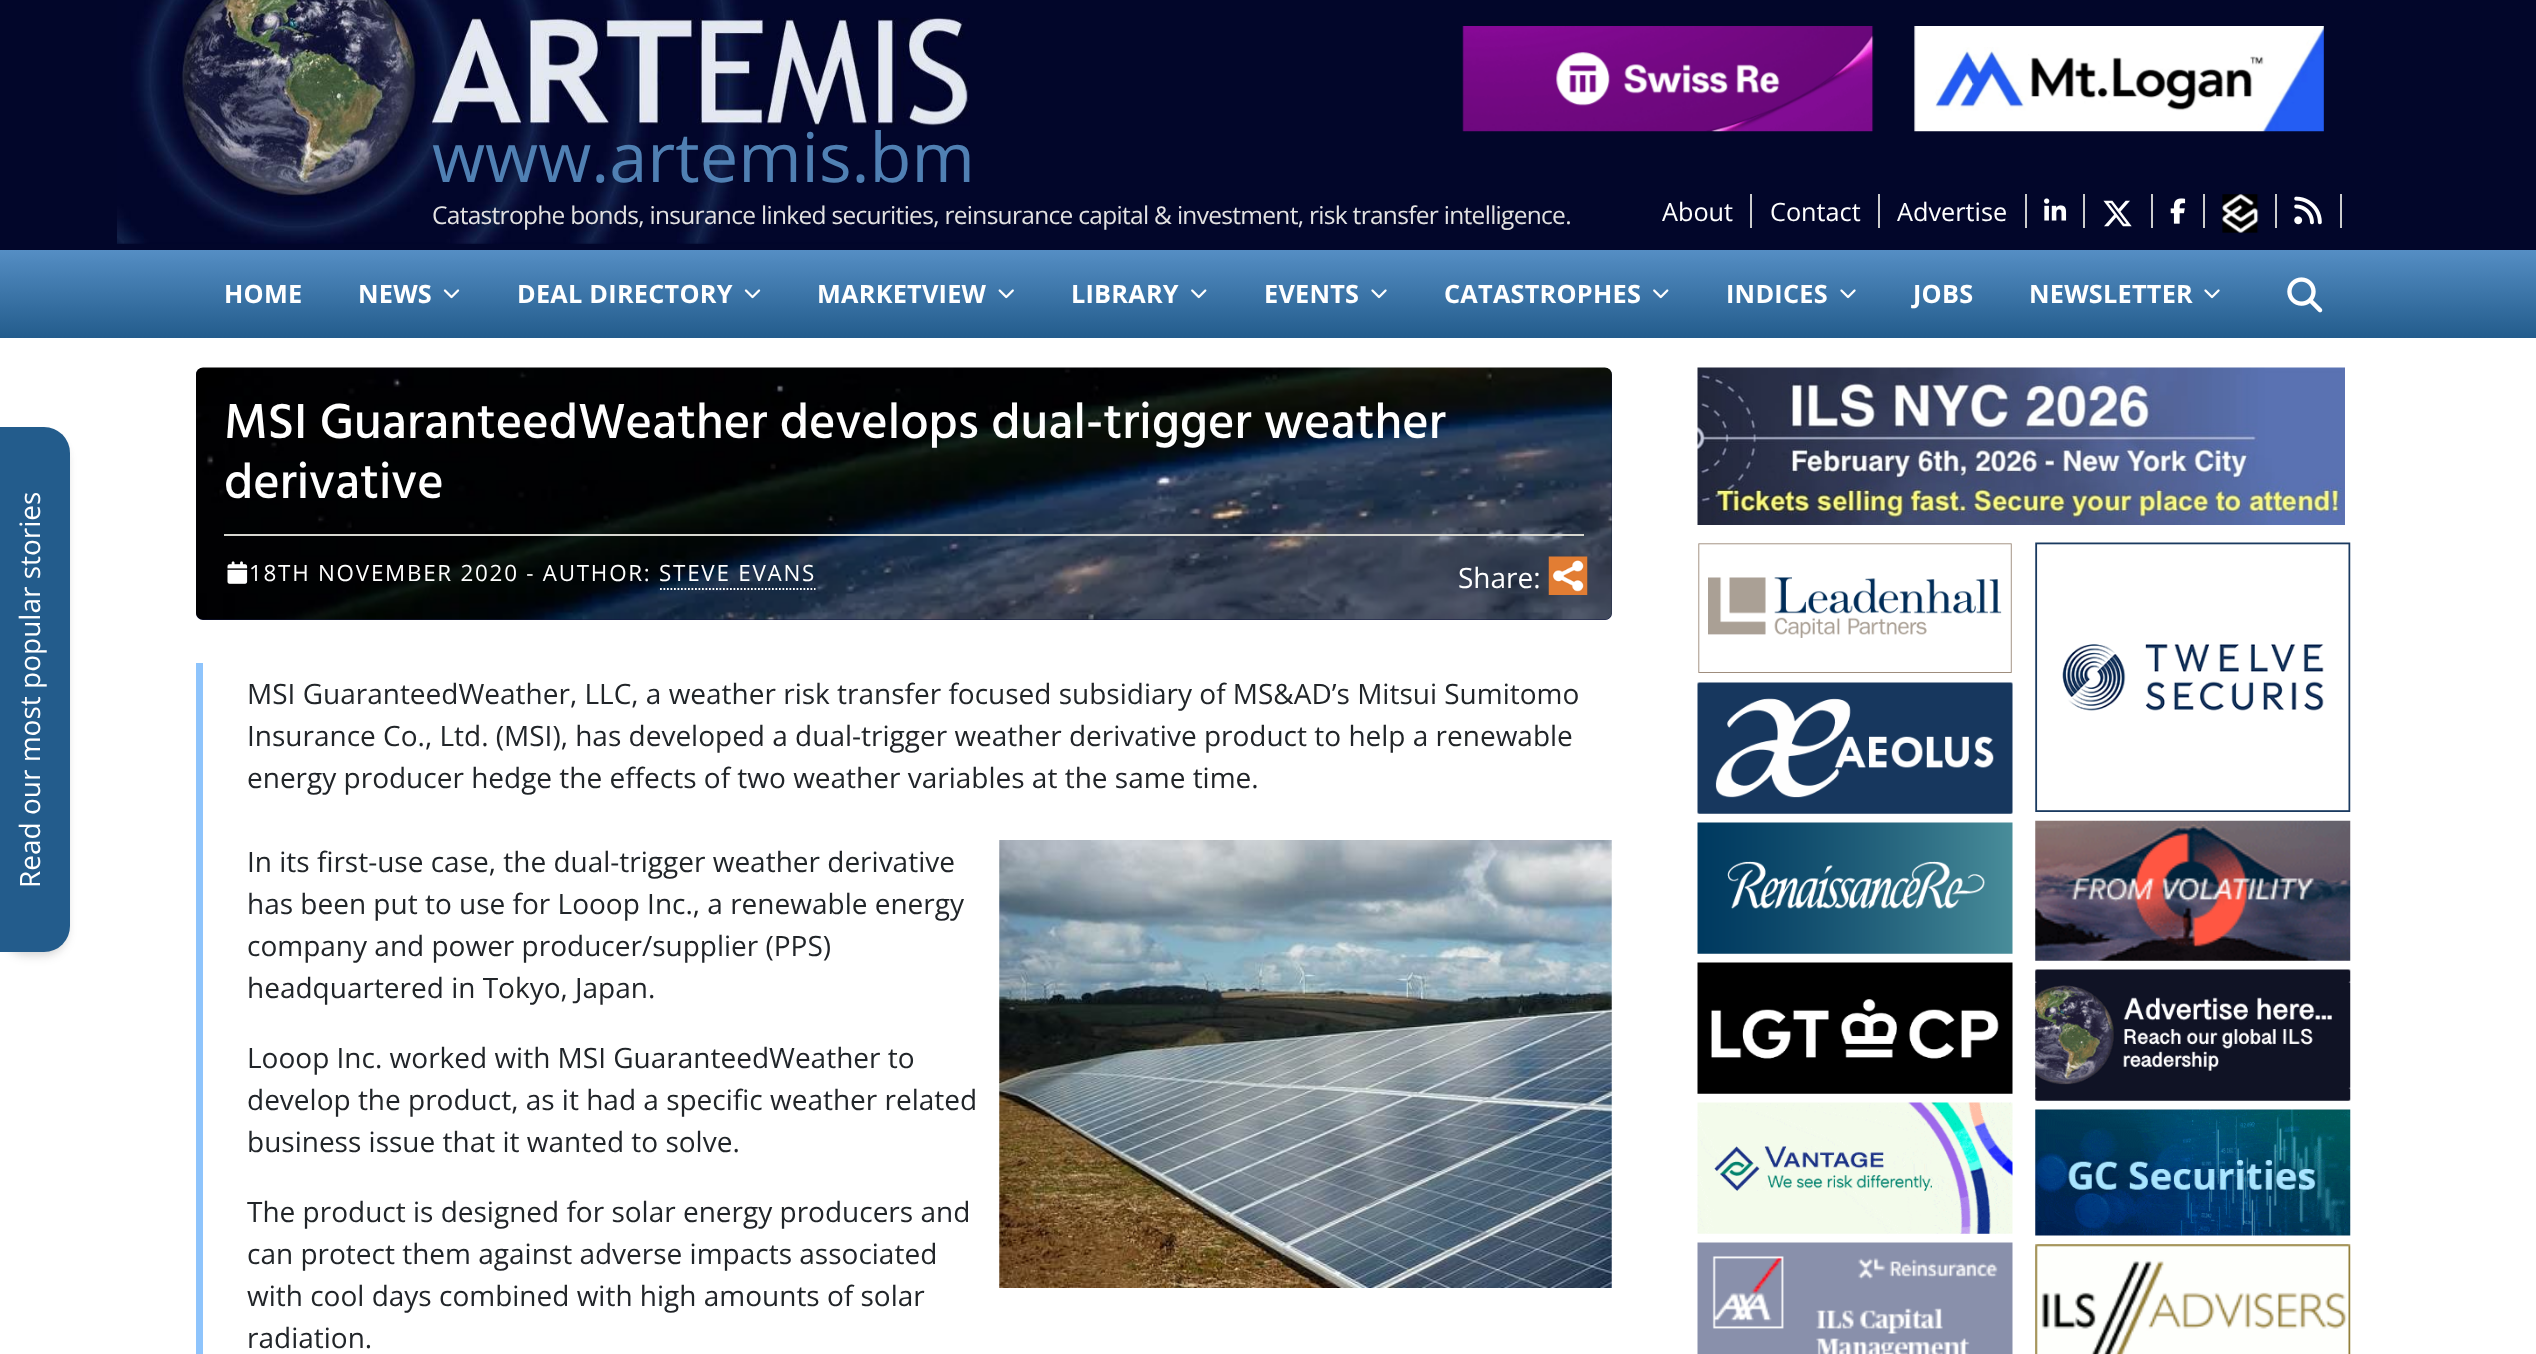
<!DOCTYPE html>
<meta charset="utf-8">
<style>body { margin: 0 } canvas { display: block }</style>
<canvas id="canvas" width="2536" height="1354"></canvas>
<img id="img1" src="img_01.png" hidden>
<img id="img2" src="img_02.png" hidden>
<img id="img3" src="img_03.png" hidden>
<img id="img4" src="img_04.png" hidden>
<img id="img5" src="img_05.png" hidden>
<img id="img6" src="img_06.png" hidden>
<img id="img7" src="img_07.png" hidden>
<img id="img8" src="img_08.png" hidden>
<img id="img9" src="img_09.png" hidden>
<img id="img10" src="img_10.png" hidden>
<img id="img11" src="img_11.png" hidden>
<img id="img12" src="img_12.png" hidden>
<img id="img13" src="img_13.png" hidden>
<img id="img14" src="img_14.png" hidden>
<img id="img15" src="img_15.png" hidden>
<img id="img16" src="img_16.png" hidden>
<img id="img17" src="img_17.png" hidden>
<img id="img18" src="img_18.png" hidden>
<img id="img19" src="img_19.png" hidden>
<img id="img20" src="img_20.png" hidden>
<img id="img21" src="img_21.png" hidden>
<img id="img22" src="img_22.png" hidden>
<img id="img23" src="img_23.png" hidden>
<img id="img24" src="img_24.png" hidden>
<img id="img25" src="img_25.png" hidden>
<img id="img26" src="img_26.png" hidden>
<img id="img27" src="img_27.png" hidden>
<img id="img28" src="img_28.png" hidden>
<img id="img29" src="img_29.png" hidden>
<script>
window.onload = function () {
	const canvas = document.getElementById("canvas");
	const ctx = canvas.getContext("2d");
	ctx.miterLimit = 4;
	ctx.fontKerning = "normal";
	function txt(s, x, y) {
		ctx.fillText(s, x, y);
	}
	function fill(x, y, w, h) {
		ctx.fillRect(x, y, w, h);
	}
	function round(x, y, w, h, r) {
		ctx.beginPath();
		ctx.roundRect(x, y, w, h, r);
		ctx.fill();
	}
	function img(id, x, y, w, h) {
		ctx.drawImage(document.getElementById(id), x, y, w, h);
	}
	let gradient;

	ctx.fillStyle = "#FFFFFF";
	fill(0, 0, 2536, 1354);
	ctx.fillStyle = "#02062A";
	fill(0, 0, 2536, 250);
	img("img1", 117, 0, 853, 244);
	img("img2", 1462, 26, 412, 106);
	img("img3", 1914, 26, 410, 106);
	ctx.fillStyle = "#CCCCCC";
	fill(1750, 194, 2, 34);
	fill(1878, 194, 2, 34);
	fill(2025, 194, 2, 34);
	fill(2083, 194, 2, 34);
	img("img4", 2044, 198, 23, 23);
	img("img5", 2103, 200, 29, 27);
	fill(2151, 194, 2, 34);
	fill(2203, 194, 2, 34);
	img("img6", 2170, 198, 16, 26);
	img("img7", 2222, 194, 37, 39);
	fill(2275, 194, 2, 34);
	fill(2340, 194, 2, 34);
	img("img8", 2294, 196, 28, 29);
	gradient = ctx.createLinearGradient(1269, 250, 1269, 338);
	gradient.addColorStop(0, "#558EC4");
	gradient.addColorStop(1, "#235C8C");
	ctx.fillStyle = gradient;
	fill(0, 250, 2536, 88);
	img("img9", 443, 289, 17, 10);
	img("img9", 744, 289, 17, 10);
	img("img10", 998, 289, 16, 10);
	img("img11", 1191, 289, 16, 10);
	img("img12", 1371, 289, 16, 10);
	img("img11", 1653, 289, 16, 10);
	img("img12", 1840, 289, 16, 10);
	img("img12", 2204, 289, 16, 10);
	img("img13", 2287, 277, 36, 36);
	ctx.fillStyle = "rgba(0, 0, 0, 0.06)";
	ctx.filter = "blur(3.5px)";
	ctx.beginPath();
	ctx.roundRect(2, 432, 66, 522, 25);
	ctx.fill();
	ctx.filter = "none";
	ctx.fillStyle = "rgba(0, 0, 0, 0.1)";
	ctx.filter = "blur(5px)";
	ctx.beginPath();
	ctx.roundRect(2, 436, 66, 521, 25);
	ctx.fill();
	ctx.filter = "none";
	ctx.fillStyle = "#235C8C";
	ctx.beginPath();
	ctx.roundRect(0, 427, 70, 525, [0, 26, 26, 0]);
	ctx.fill();
	ctx.fillStyle = "#121942";
	round(196, 368, 1416, 252, 7);
	img("img14", 196, 367, 1416, 253);
	ctx.fillStyle = "#D7D7D0";
	fill(224, 534, 1360, 2);
	img("img15", 227, 561, 21, 23);
	ctx.beginPath();
	ctx.moveTo(660, 589);
	ctx.lineTo(815.5, 589);
	ctx.strokeStyle = "#FFFFFF";
	ctx.lineWidth = 1.8;
	ctx.setLineDash([1.75, 1.75]);
	ctx.stroke();
	img("img16", 1548, 556, 40, 39);
	ctx.fillStyle = "#8EC4FC";
	fill(196, 663, 7, 691);
	img("img17", 999, 840, 613, 448);
	img("img18", 1697, 367, 648, 158);
	img("img19", 1698, 543, 314, 130);
	img("img20", 1697, 682, 316, 132);
	img("img21", 1697, 822, 316, 132);
	img("img22", 1697, 962, 316, 132);
	img("img23", 1697, 1102, 316, 132);
	img("img24", 1697, 1242, 316, 112);
	img("img25", 2035, 542, 316, 270);
	img("img26", 2035, 820, 316, 141);
	img("img27", 2035, 969, 316, 132);
	img("img28", 2035, 1109, 316, 127);
	img("img29", 2035, 1244, 316, 110);
	ctx.font = "68.5px Open Sans";
	ctx.fillStyle = "#5080B3";
	txt("www.artemis.bm", 432, 182);
	ctx.letterSpacing = "-0.7px";
	ctx.font = "24.5px Open Sans";
	ctx.fillStyle = "#E3E2E2";
	txt("Catastrophe bonds, insurance linked securities, reinsurance capital & investment, risk transfer intelligence.", 432, 224);
	ctx.letterSpacing = "0px";
	ctx.font = "25.25px Open Sans";
	ctx.fillStyle = "#FFFFFF";
	txt("About", 1662, 221);
	txt("Contact", 1770, 221);
	txt("Advertise", 1897, 221);
	ctx.letterSpacing = "0.25px";
	ctx.font = "bold 25.25px Open Sans";
	txt("HOME", 224, 303);
	txt("NEWS", 358, 303);
	txt("DEAL DIRECTORY", 517, 303);
	txt("MARKETVIEW", 817, 303);
	txt("LIBRARY", 1071, 303);
	txt("EVENTS", 1264, 303);
	txt("CATASTROPHES", 1444, 303);
	txt("INDICES", 1726, 303);
	txt("JOBS", 1913, 303);
	txt("NEWSLETTER", 2029, 303);
	ctx.letterSpacing = "0px";
	ctx.font = "28px Open Sans";
	ctx.save();
	ctx.translate(40, 888);
	ctx.rotate(-90 * Math.PI / 180);
	ctx.fillText("Read our most popular stories", 0, 0);
	ctx.restore();
	ctx.font = "500 50.4px Hind";
	txt("MSI GuaranteedWeather develops dual-trigger weather", 224, 438);
	txt("derivative", 224, 498);
	ctx.letterSpacing = "1.75px";
	ctx.font = "22.4px Open Sans";
	txt("18TH NOVEMBER 2020 - AUTHOR: STEVE EVANS", 249, 581);
	ctx.letterSpacing = "0px";
	ctx.font = "28px Open Sans";
	txt("Share:", 1458, 588);
	ctx.fillStyle = "#212529";
	txt("MSI GuaranteedWeather, LLC, a weather risk transfer focused subsidiary of MS&AD’s Mitsui Sumitomo", 247, 704);
	txt("Insurance Co., Ltd. (MSI), has developed a dual-trigger weather derivative product to help a renewable", 247, 746);
	txt("energy producer hedge the effects of two weather variables at the same time.", 247, 788);
	txt("In its first-use case, the dual-trigger weather derivative", 247, 872);
	txt("has been put to use for Looop Inc., a renewable energy", 247, 914);
	txt("company and power producer/supplier (PPS)", 247, 956);
	txt("headquartered in Tokyo, Japan.", 247, 998);
	txt("Looop Inc. worked with MSI GuaranteedWeather to", 247, 1068);
	txt("develop the product, as it had a specific weather related", 247, 1110);
	txt("business issue that it wanted to solve.", 247, 1152);
	txt("The product is designed for solar energy producers and", 247, 1222);
	txt("can protect them against adverse impacts associated", 247, 1264);
	txt("with cool days combined with high amounts of solar", 247, 1306);
	txt("radiation.", 247, 1348);
};
</script>
